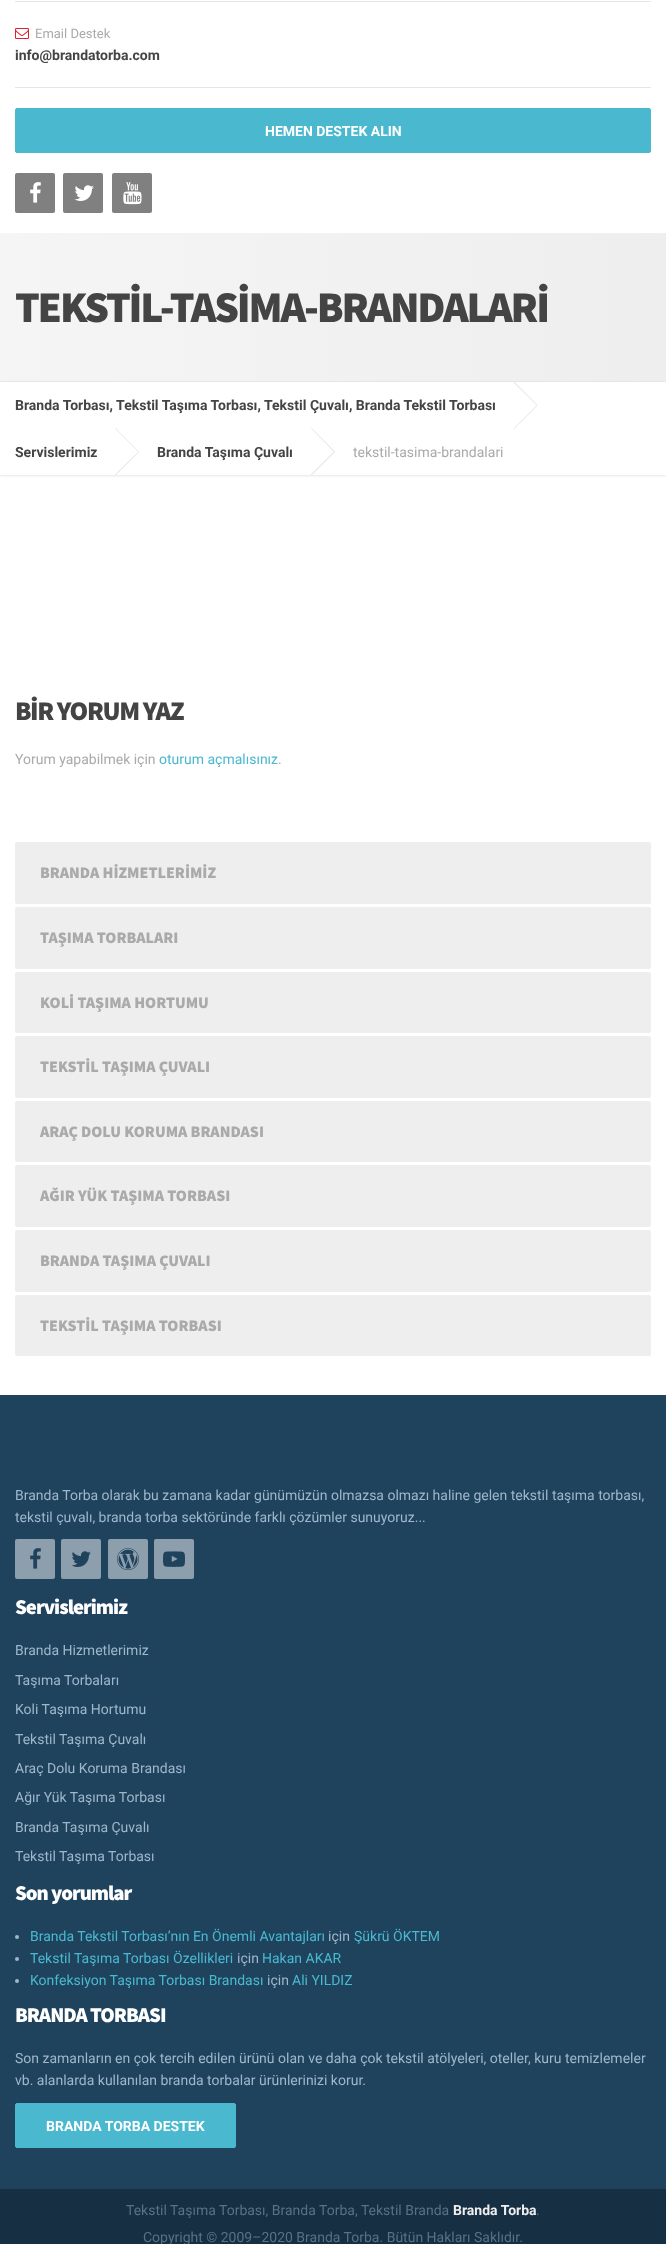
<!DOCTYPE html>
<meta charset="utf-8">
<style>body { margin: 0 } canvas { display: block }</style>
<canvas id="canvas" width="666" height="2244"></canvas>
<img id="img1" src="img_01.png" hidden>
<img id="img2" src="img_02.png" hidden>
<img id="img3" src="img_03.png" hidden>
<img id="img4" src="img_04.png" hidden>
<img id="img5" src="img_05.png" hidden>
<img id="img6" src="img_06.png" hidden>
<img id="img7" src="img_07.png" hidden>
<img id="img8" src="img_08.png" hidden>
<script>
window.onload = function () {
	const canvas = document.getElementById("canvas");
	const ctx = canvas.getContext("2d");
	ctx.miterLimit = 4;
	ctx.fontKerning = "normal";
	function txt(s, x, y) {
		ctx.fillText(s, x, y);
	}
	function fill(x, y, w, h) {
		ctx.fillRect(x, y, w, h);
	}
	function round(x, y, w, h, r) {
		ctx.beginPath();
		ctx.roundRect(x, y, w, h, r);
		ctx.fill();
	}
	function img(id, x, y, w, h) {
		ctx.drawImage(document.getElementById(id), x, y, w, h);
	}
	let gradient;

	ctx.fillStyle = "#FFFFFF";
	fill(0, 0, 666, 2244);
	ctx.fillStyle = "#E6E6E6";
	fill(15, 1, 636, 1);
	fill(15, 87, 636, 1);
	img("img1", 15, 28, 14, 11);
	ctx.fillStyle = "#4AB9CF";
	ctx.beginPath();
	ctx.roundRect(15.5, 108.5, 635, 44, 1.5);
	ctx.fill();
	ctx.strokeStyle = "#4AB9CF";
	ctx.stroke();
	ctx.fillStyle = "#808080";
	round(15, 173, 40, 40, 2);
	img("img2", 30, 182, 11, 21);
	round(63, 173, 40, 40, 2);
	img("img3", 74, 185, 20, 16);
	round(112, 173, 40, 40, 2);
	img("img4", 123, 182, 19, 23);
	gradient = ctx.createLinearGradient(0, 307, 666, 307);
	gradient.addColorStop(0, "#F5F5F5");
	gradient.addColorStop(1, "#EEEEEE");
	ctx.fillStyle = gradient;
	fill(0, 233, 666, 148);
	ctx.save();
	ctx.beginPath();
	ctx.moveTo(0, 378);
	ctx.lineTo(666, 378);
	ctx.lineTo(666, 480);
	ctx.lineTo(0, 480);
	ctx.closePath();
	ctx.moveTo(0, 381);
	ctx.lineTo(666, 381);
	ctx.lineTo(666, 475);
	ctx.lineTo(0, 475);
	ctx.closePath();
	ctx.clip("evenodd");
	ctx.fillStyle = "#E6E6E6";
	ctx.filter = "blur(1px)";
	ctx.beginPath();
	ctx.rect(0, 382, 666, 94);
	ctx.fill();
	ctx.filter = "none";
	ctx.restore();
	ctx.fillStyle = "#E6E6E6";
	fill(0, 381, 666, 1);
	ctx.beginPath();
	ctx.moveTo(513.5, 382.5);
	ctx.lineTo(514, 381.5);
	ctx.lineTo(537.5, 405);
	ctx.lineTo(537, 405.5);
	ctx.closePath();
	ctx.fill();
	ctx.beginPath();
	ctx.moveTo(537, 405);
	ctx.lineTo(537.5, 405.5);
	ctx.lineTo(514, 429);
	ctx.lineTo(513.5, 428.5);
	ctx.closePath();
	ctx.fill();
	ctx.beginPath();
	ctx.moveTo(115, 428.5);
	ctx.lineTo(115.5, 428);
	ctx.lineTo(139, 451.5);
	ctx.lineTo(138.5, 452);
	ctx.closePath();
	ctx.fill();
	ctx.beginPath();
	ctx.moveTo(138.5, 451.5);
	ctx.lineTo(139, 452);
	ctx.lineTo(115.5, 475.5);
	ctx.lineTo(115, 474.5);
	ctx.closePath();
	ctx.fill();
	ctx.beginPath();
	ctx.moveTo(311, 428.5);
	ctx.lineTo(311.5, 428);
	ctx.lineTo(335, 451.5);
	ctx.lineTo(334, 452);
	ctx.closePath();
	ctx.fill();
	ctx.beginPath();
	ctx.moveTo(334, 451.5);
	ctx.lineTo(335, 452);
	ctx.lineTo(311.5, 475.5);
	ctx.lineTo(311, 474.5);
	ctx.closePath();
	ctx.fill();
	ctx.fillStyle = "#EEEEEE";
	round(15, 842, 636, 62, 2);
	round(15, 907, 636, 62, 2);
	round(15, 972, 636, 61, 2);
	round(15, 1036, 636, 62, 2);
	round(15, 1101, 636, 61, 2);
	round(15, 1165, 636, 62, 2);
	round(15, 1230, 636, 62, 2);
	round(15, 1295, 636, 61, 2);
	ctx.fillStyle = "#1F425D";
	fill(0, 1395, 666, 794);
	ctx.fillStyle = "#8D9EAC";
	round(15, 1539, 40, 40, 2);
	img("img5", 30, 1548, 11, 21);
	round(61, 1539, 40, 40, 2);
	img("img6", 71, 1551, 20, 16);
	round(108, 1539, 40, 40, 2);
	img("img7", 117, 1548, 22, 23);
	round(154, 1539, 40, 40, 2);
	img("img8", 163, 1551, 22, 16);
	ctx.fillStyle = "#9EB7CB";
	ctx.beginPath();
	ctx.arc(17, 1937, 2, 0, Math.PI * 2);
	ctx.fill();
	ctx.beginPath();
	ctx.arc(17, 1959, 2, 0, Math.PI * 2);
	ctx.fill();
	ctx.beginPath();
	ctx.arc(17, 1981, 2, 0, Math.PI * 2);
	ctx.fill();
	ctx.fillStyle = "#4AB9CF";
	ctx.beginPath();
	ctx.roundRect(15.5, 2103.5, 220, 44, 1.5);
	ctx.fill();
	ctx.stroke();
	ctx.fillStyle = "#162F42";
	fill(0, 2189, 666, 55);
	ctx.font = "13px Roboto";
	ctx.fillStyle = "#AAAAAA";
	txt("Email Destek", 35, 38);
	ctx.font = "bold 14px Roboto";
	ctx.fillStyle = "#444444";
	txt("info@brandatorba.com", 15, 60);
	ctx.fillStyle = "#FFFFFF";
	txt("HEMEN DESTEK ALIN", 265, 136);
	ctx.letterSpacing = "-2.2px";
	ctx.font = "900 44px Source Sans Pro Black";
	ctx.fillStyle = "#444444";
	txt("TEKSTİL-TASİMA-BRANDALARİ", 15, 322);
	ctx.letterSpacing = "0px";
	ctx.font = "bold 14px Roboto";
	txt("Branda Torbası, Tekstil Taşıma Torbası, Tekstil Çuvalı, Branda Tekstil Torbası", 15, 410);
	txt("Servislerimiz", 15, 457);
	txt("Branda Taşıma Çuvalı", 157, 457);
	ctx.font = "14px Roboto";
	ctx.fillStyle = "#AAAAAA";
	txt("tekstil-tasima-brandalari", 353, 457);
	ctx.letterSpacing = "-1.4px";
	ctx.font = "900 27px Source Sans Pro Black";
	ctx.fillStyle = "#444444";
	txt("BİR YORUM YAZ", 15, 720);
	ctx.letterSpacing = "0px";
	ctx.font = "14px Roboto";
	ctx.fillStyle = "#AAAAAA";
	txt("Yorum yapabilmek için", 15, 764);
	ctx.fillStyle = "#4AB9CF";
	txt("oturum açmalısınız", 159, 764);
	ctx.fillStyle = "#AAAAAA";
	txt(".", 278, 764);
	ctx.font = "900 16px Source Sans Pro Black";
	txt("BRANDA HİZMETLERİMİZ", 40, 878);
	txt("TAŞIMA TORBALARI", 40, 943);
	txt("KOLİ TAŞIMA HORTUMU", 40, 1008);
	txt("TEKSTİL TAŞIMA ÇUVALI", 40, 1072);
	txt("ARAÇ DOLU KORUMA BRANDASI", 40, 1137);
	txt("AĞIR YÜK TAŞIMA TORBASI", 40, 1201);
	txt("BRANDA TAŞIMA ÇUVALI", 40, 1266);
	txt("TEKSTİL TAŞIMA TORBASI", 40, 1331);
	ctx.font = "14px Roboto";
	ctx.fillStyle = "#9EB7CB";
	txt("Branda Torba olarak bu zamana kadar günümüzün olmazsa olmazı haline gelen tekstil taşıma torbası,", 15, 1500);
	txt("tekstil çuvalı, branda torba sektöründe farklı çözümler sunuyoruz...", 15, 1522);
	ctx.letterSpacing = "-1px";
	ctx.font = "900 21px Source Sans Pro Black";
	ctx.fillStyle = "#FFFFFF";
	txt("Servislerimiz", 15, 1614);
	ctx.letterSpacing = "0px";
	ctx.font = "14px Roboto";
	ctx.fillStyle = "#9EB7CB";
	txt("Branda Hizmetlerimiz", 15, 1655);
	txt("Taşıma Torbaları", 15, 1685);
	txt("Koli Taşıma Hortumu", 15, 1714);
	txt("Tekstil Taşıma Çuvalı", 15, 1744);
	txt("Araç Dolu Koruma Brandası", 15, 1773);
	txt("Ağır Yük Taşıma Torbası", 15, 1802);
	txt("Branda Taşıma Çuvalı", 15, 1832);
	txt("Tekstil Taşıma Torbası", 15, 1861);
	ctx.letterSpacing = "-1px";
	ctx.font = "900 21px Source Sans Pro Black";
	ctx.fillStyle = "#FFFFFF";
	txt("Son yorumlar", 15, 1900);
	ctx.letterSpacing = "0px";
	ctx.font = "14px Roboto";
	ctx.fillStyle = "#4AB9CF";
	txt("Branda Tekstil Torbası’nın En Önemli Avantajları", 30, 1941);
	ctx.fillStyle = "#9EB7CB";
	txt("için", 328, 1941);
	ctx.fillStyle = "#4AB9CF";
	txt("Şükrü ÖKTEM", 354, 1941);
	txt("Tekstil Taşıma Torbası Özellikleri", 30, 1963);
	ctx.fillStyle = "#9EB7CB";
	txt("için", 237, 1963);
	ctx.fillStyle = "#4AB9CF";
	txt("Hakan AKAR", 262, 1963);
	txt("Konfeksiyon Taşıma Torbası Brandası", 30, 1985);
	ctx.fillStyle = "#9EB7CB";
	txt("için", 267, 1985);
	ctx.fillStyle = "#4AB9CF";
	txt("Ali YILDIZ", 292, 1985);
	ctx.letterSpacing = "-1px";
	ctx.font = "900 21px Source Sans Pro Black";
	ctx.fillStyle = "#FFFFFF";
	txt("BRANDA TORBASI", 15, 2022);
	ctx.letterSpacing = "0px";
	ctx.font = "14px Roboto";
	ctx.fillStyle = "#9EB7CB";
	txt("Son zamanların en çok tercih edilen ürünü olan ve daha çok tekstil atölyeleri, oteller, kuru temizlemeler", 15, 2063);
	txt("vb. alanlarda kullanılan branda torbalar ürünlerinizi korur.", 15, 2085);
	ctx.font = "bold 14px Roboto";
	ctx.fillStyle = "#FFFFFF";
	txt("BRANDA TORBA DESTEK", 46, 2131);
	ctx.font = "14px Roboto";
	ctx.fillStyle = "#577186";
	txt("Tekstil Taşıma Torbası, Branda Torba, Tekstil Branda", 126, 2215);
	ctx.font = "bold 14px Roboto";
	ctx.fillStyle = "#EEEEEE";
	txt("Branda Torba", 453, 2215);
	ctx.font = "14px Roboto";
	ctx.fillStyle = "#577186";
	txt(".", 536, 2215);
	txt("Copyright © 2009–2020 Branda Torba. Bütün Hakları Saklıdır.", 143, 2242);
};
</script>
